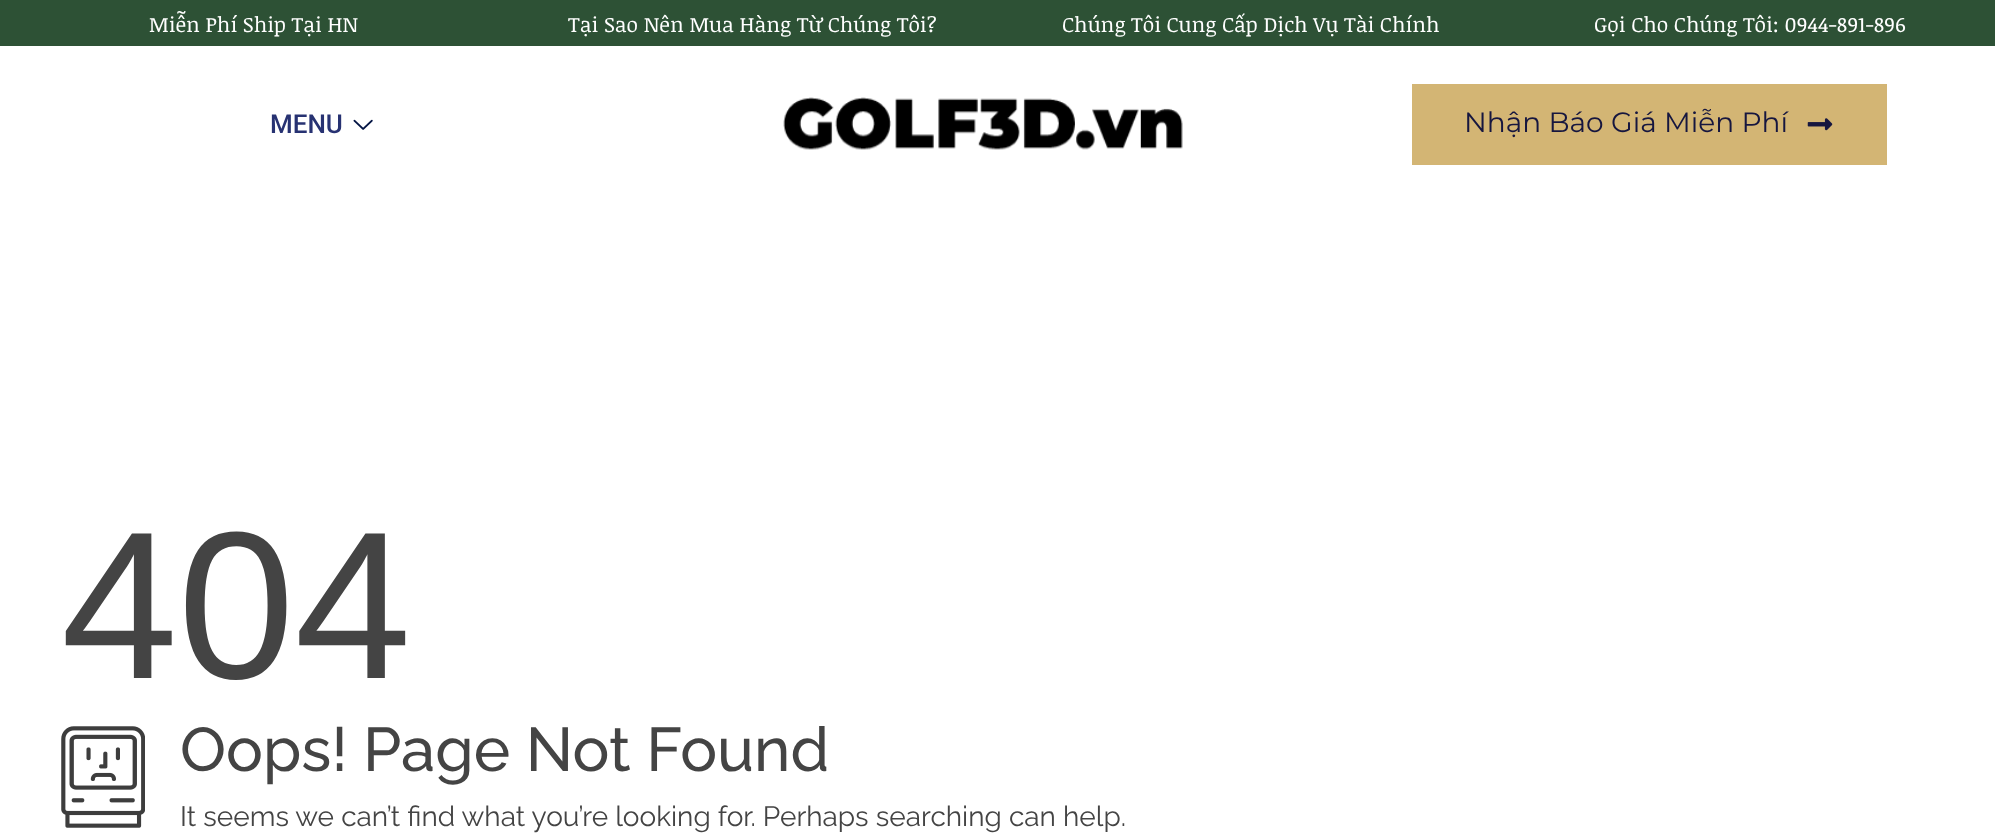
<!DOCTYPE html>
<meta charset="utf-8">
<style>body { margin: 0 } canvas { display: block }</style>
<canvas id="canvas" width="1995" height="835"></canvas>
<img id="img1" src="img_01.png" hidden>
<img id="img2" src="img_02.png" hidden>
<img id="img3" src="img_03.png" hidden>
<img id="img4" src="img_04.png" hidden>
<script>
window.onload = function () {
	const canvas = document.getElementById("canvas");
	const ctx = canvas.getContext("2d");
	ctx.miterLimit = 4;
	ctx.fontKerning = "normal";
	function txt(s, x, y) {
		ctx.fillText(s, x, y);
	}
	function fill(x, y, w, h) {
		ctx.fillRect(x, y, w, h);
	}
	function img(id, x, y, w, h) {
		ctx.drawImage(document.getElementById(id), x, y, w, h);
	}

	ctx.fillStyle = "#FFFFFF";
	fill(0, 0, 1995, 835);
	ctx.fillStyle = "#2D5135";
	fill(0, 0, 1995, 46);
	img("img1", 353, 119, 20, 11);
	img("img2", 783, 97, 400, 53);
	ctx.fillStyle = "#D3B574";
	fill(1412, 84, 475, 81);
	img("img3", 1807, 118, 26, 13);
	img("img4", 61, 726, 84, 102);
	ctx.font = "21px Noticia Text";
	ctx.fillStyle = "#FFFFFF";
	txt("Miễn Phí Ship Tại HN", 149, 32);
	txt("Tại Sao Nên Mua Hàng Từ Chúng Tôi?", 568, 32);
	txt("Chúng Tôi Cung Cấp Dịch Vụ Tài Chính", 1062, 32);
	txt("Gọi Cho Chúng Tôi: 0944-891-896", 1594, 32);
	ctx.font = "500 26px Roboto";
	ctx.fillStyle = "#273272";
	txt("MENU", 270, 133);
	ctx.font = "28px Montserrat";
	ctx.fillStyle = "#16163F";
	txt("Nhận Báo Giá Miễn Phí", 1464, 132);
	ctx.font = "210px Liberation Sans";
	ctx.fillStyle = "#444444";
	txt("404", 61, 678);
	ctx.font = "500 61.6px Raleway";
	txt("Oops! Page Not Found", 180, 771);
	ctx.font = "28px Raleway";
	txt("It seems we can’t find what you’re looking for. Perhaps searching can help.", 180, 826);
};
</script>
